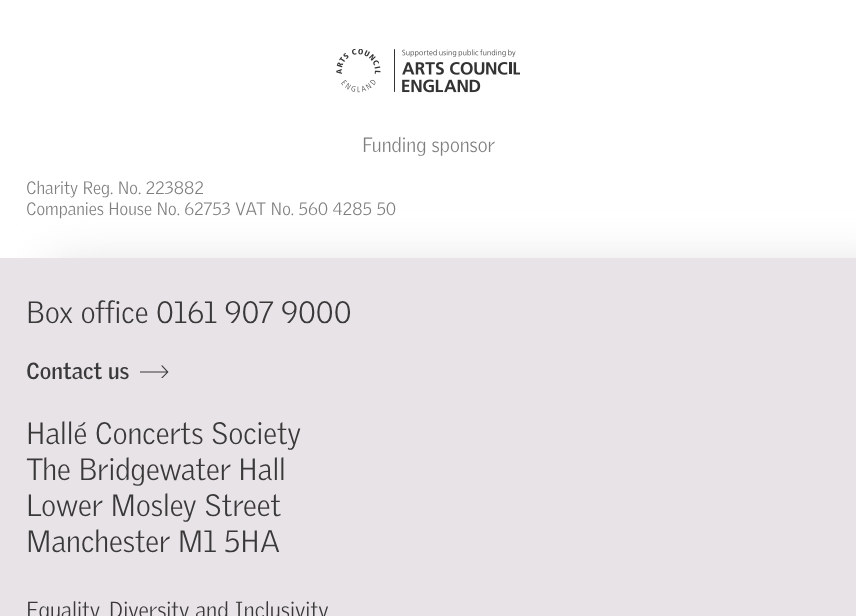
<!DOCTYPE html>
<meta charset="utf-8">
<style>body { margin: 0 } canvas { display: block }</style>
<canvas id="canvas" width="856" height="616"></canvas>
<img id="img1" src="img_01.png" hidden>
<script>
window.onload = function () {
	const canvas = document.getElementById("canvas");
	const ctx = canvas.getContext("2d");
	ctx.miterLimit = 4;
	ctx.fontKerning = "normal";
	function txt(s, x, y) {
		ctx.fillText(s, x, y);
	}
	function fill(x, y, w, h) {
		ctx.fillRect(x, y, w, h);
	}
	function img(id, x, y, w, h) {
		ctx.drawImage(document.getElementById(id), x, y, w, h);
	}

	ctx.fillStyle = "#FFFFFF";
	fill(0, 0, 856, 616);
	ctx.save();
	ctx.beginPath();
	ctx.moveTo(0, 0);
	ctx.lineTo(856, 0);
	ctx.lineTo(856, 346);
	ctx.lineTo(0, 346);
	ctx.closePath();
	ctx.moveTo(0, -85);
	ctx.lineTo(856, -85);
	ctx.lineTo(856, 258);
	ctx.lineTo(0, 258);
	ctx.closePath();
	ctx.clip("evenodd");
	ctx.fillStyle = "#D6D6D6";
	ctx.filter = "blur(25px)";
	ctx.beginPath();
	ctx.rect(50, -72, 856, 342);
	ctx.fill();
	ctx.filter = "none";
	ctx.restore();
	img("img1", 336, 49, 184, 44);
	ctx.fillStyle = "#D6D6D6";
	ctx.filter = "blur(25px)";
	ctx.beginPath();
	ctx.rect(50, 270, 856, 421);
	ctx.fill();
	ctx.filter = "none";
	ctx.fillStyle = "#E8E3E7";
	fill(0, 258, 856, 358);
	ctx.fillStyle = "#393939";
	ctx.beginPath();
	ctx.moveTo(168.5, 372);
	ctx.lineTo(162.5, 378);
	ctx.lineTo(161, 378);
	ctx.lineTo(166.5, 372.5);
	ctx.lineTo(140, 372.5);
	ctx.lineTo(140, 371.5);
	ctx.lineTo(166.5, 371.5);
	ctx.lineTo(161, 365.5);
	ctx.lineTo(162.5, 365.5);
	ctx.closePath();
	ctx.fill();
	ctx.font = "300 20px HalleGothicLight";
	ctx.fillStyle = "#7F7F7F";
	txt("Funding sponsor", 362, 152);
	ctx.font = "300 17.5px HalleGothicLight";
	txt("Charity Reg. No. 223882", 26, 194);
	txt("Companies House No. 62753 VAT No. 560 4285 50", 26, 215);
	ctx.font = "300 30px HalleGothicLight";
	ctx.fillStyle = "#393939";
	txt("Box office 0161 907 9000", 26, 323);
	ctx.font = "bold 22.5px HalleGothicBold";
	txt("Contact us", 26, 379);
	ctx.font = "300 30px HalleGothicLight";
	txt("Hallé Concerts Society", 26, 444);
	txt("The Bridgewater Hall", 26, 480);
	txt("Lower Mosley Street", 26, 516);
	txt("Manchester M1 5HA", 26, 552);
	ctx.font = "300 22.5px HalleGothicLight";
	txt("Equality, Diversity and Inclusivity", 26, 618);
};
</script>
